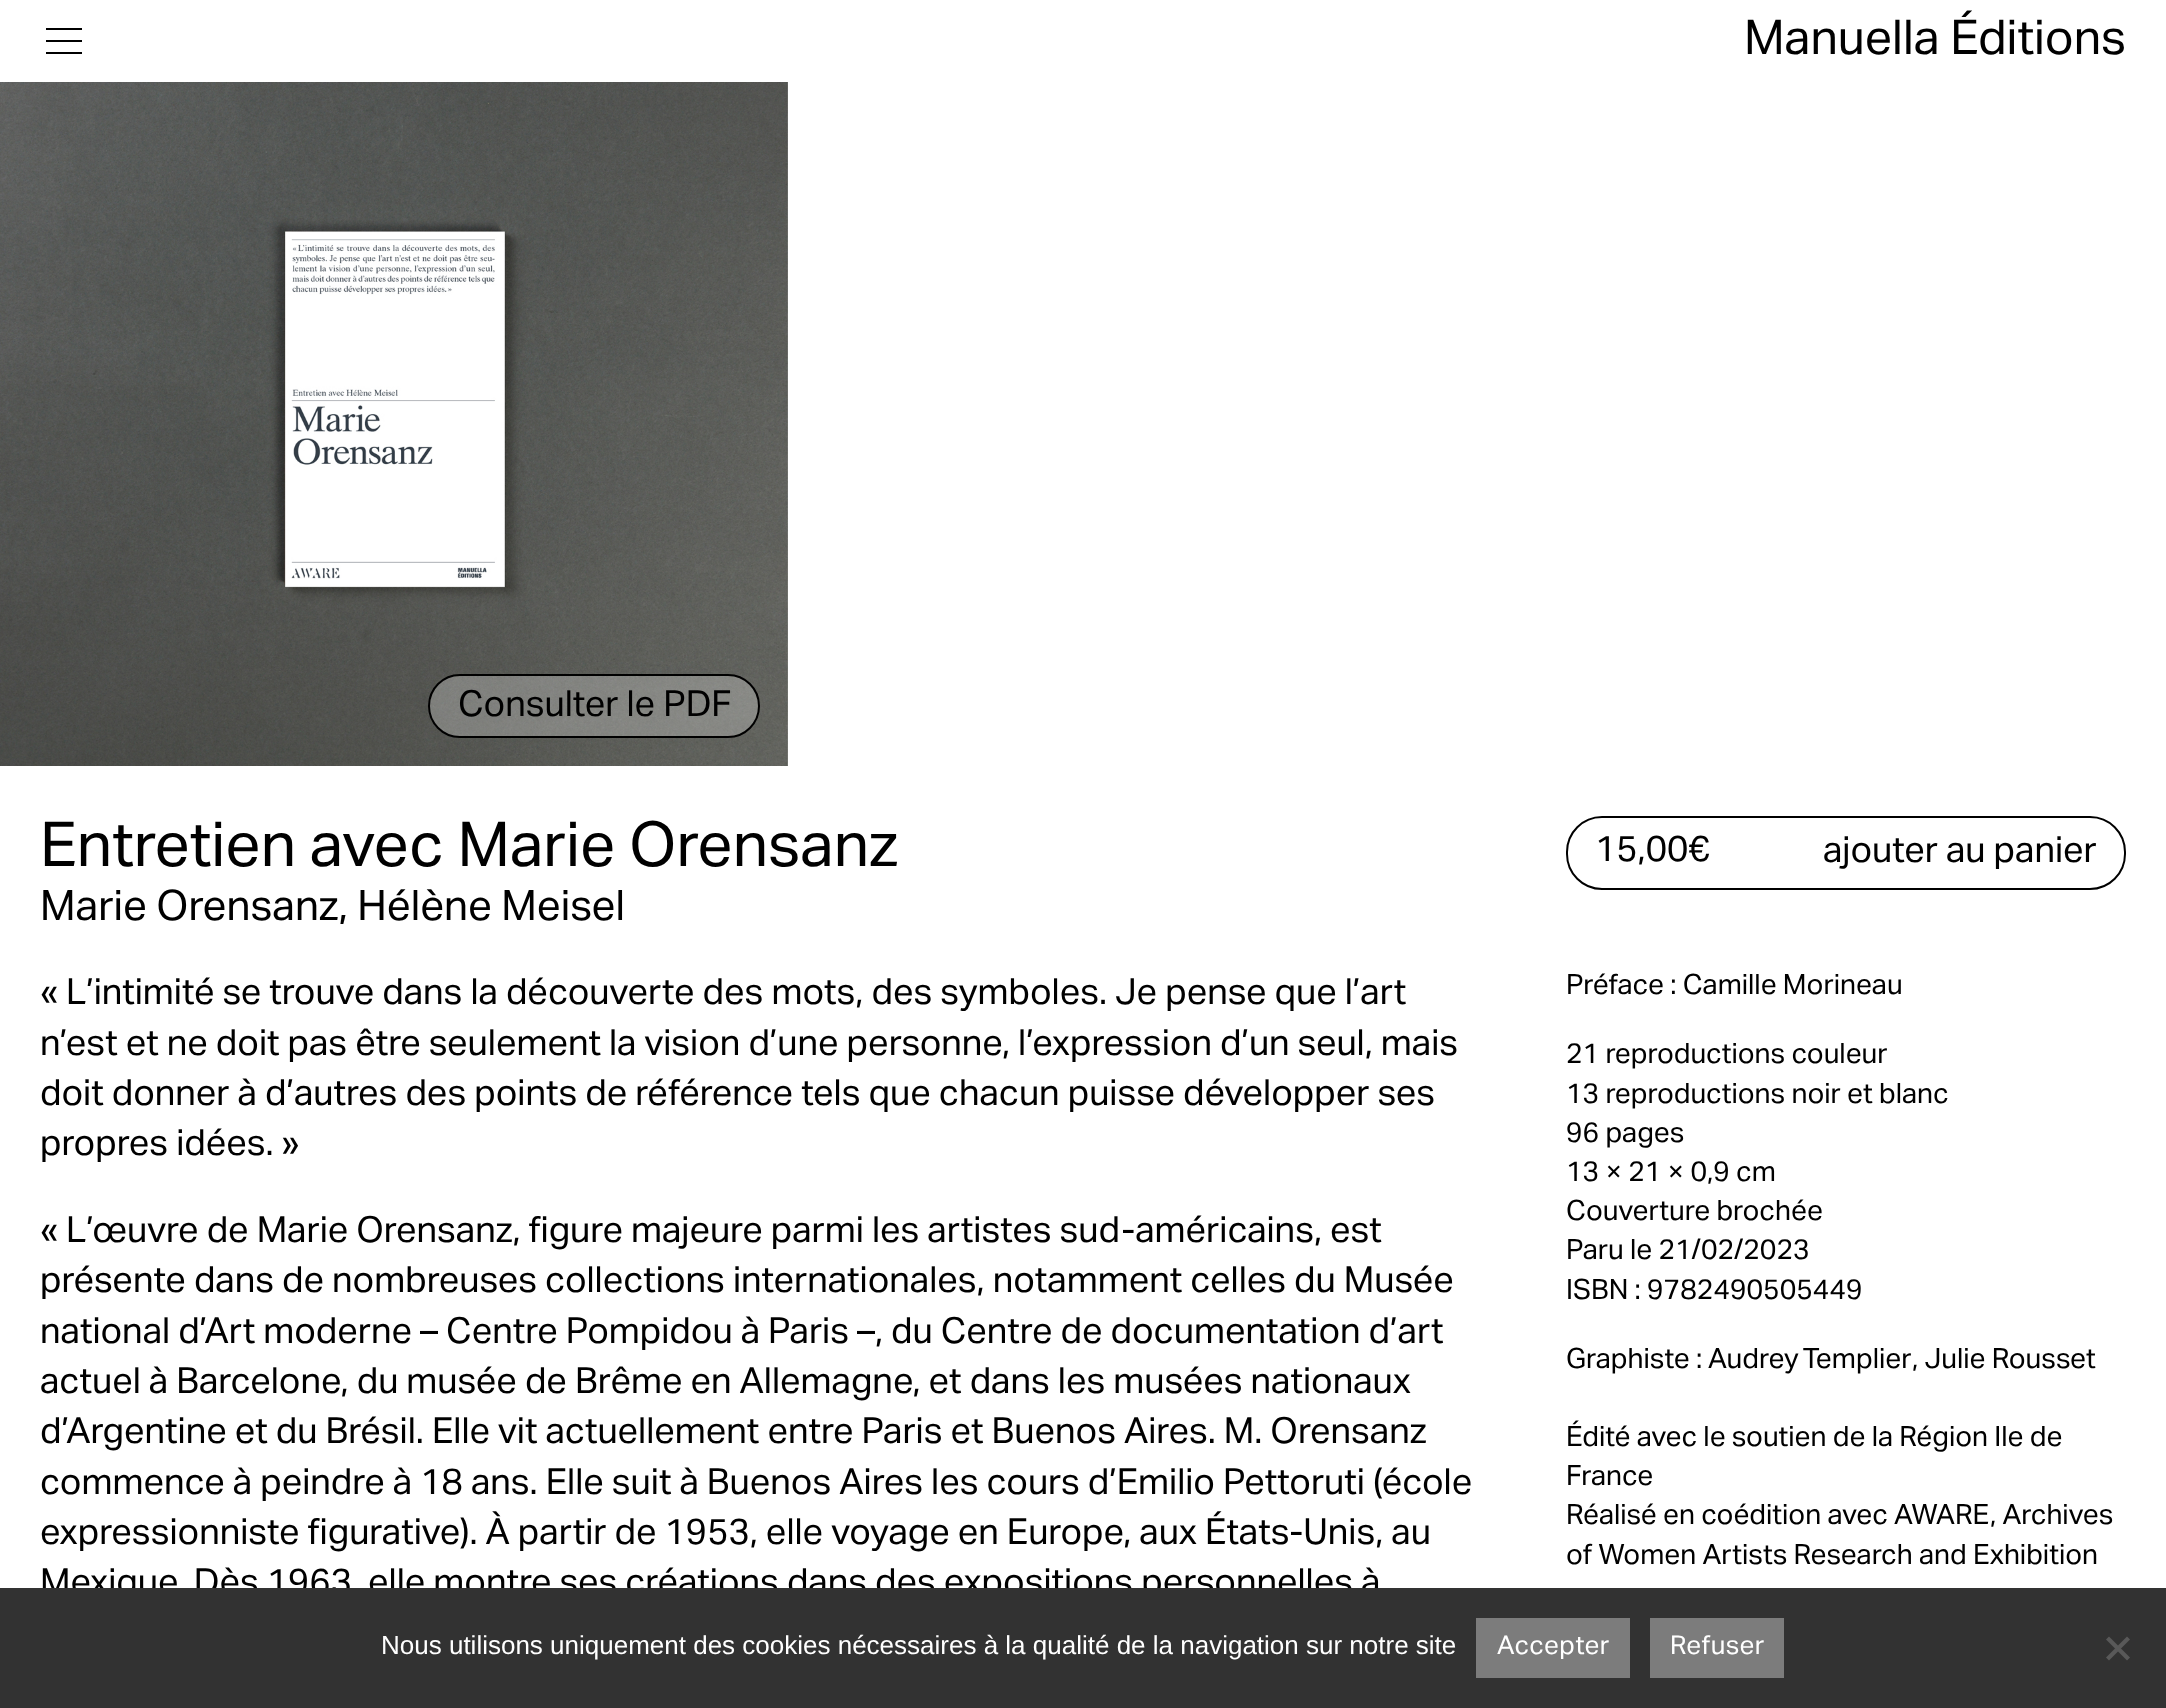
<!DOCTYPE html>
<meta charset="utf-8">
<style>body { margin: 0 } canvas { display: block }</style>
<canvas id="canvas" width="2166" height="1708"></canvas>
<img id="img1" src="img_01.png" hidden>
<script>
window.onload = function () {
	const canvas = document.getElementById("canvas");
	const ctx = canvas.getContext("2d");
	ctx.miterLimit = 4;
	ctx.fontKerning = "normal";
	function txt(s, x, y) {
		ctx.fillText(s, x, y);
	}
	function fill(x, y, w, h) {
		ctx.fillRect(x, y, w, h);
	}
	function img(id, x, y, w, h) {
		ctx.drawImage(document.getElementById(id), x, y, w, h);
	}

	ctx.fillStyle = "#FFFFFF";
	fill(0, 0, 2166, 1708);
	ctx.fillStyle = "#000000";
	ctx.beginPath();
	ctx.moveTo(82, 30);
	ctx.lineTo(46, 30);
	ctx.lineTo(46, 28);
	ctx.lineTo(82, 28);
	ctx.closePath();
	ctx.moveTo(82, 40);
	ctx.lineTo(46, 40);
	ctx.lineTo(46, 42);
	ctx.lineTo(82, 42);
	ctx.closePath();
	ctx.moveTo(82, 52);
	ctx.lineTo(46, 52);
	ctx.lineTo(46, 54);
	ctx.lineTo(82, 54);
	ctx.closePath();
	ctx.fill();
	img("img1", 0, 82, 788, 684);
	ctx.fillStyle = "rgba(255, 255, 255, 0.25)";
	ctx.beginPath();
	ctx.roundRect(429, 675, 330, 62, 31);
	ctx.fill();
	ctx.strokeStyle = "#000000";
	ctx.lineWidth = 2;
	ctx.stroke();
	ctx.beginPath();
	ctx.roundRect(1567, 817, 558, 72, 35);
	ctx.stroke();
	ctx.font = "48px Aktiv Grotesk";
	ctx.fillStyle = "#000000";
	txt("Manuella Éditions", 1744, 54);
	ctx.font = "36px Aktiv Grotesk";
	txt("Consulter le PDF", 458, 716);
	ctx.font = "62px Aktiv Grotesk";
	txt("Entretien avec Marie Orensanz", 40, 866);
	ctx.font = "42px Aktiv Grotesk";
	txt("Marie Orensanz, Hélène Meisel", 40, 920);
	ctx.font = "36px Aktiv Grotesk";
	txt("« L’intimité se trouve dans la découverte des mots, des symboles. Je pense que l’art", 40, 1004);
	txt("n’est et ne doit pas être seulement la vision d’une personne, l’expression d’un seul, mais", 40, 1055);
	txt("doit donner à d’autres des points de référence tels que chacun puisse développer ses", 40, 1105);
	txt("propres idées. »", 40, 1155);
	txt("« L’œuvre de Marie Orensanz, figure majeure parmi les artistes sud-américains, est", 40, 1242);
	txt("présente dans de nombreuses collections internationales, notamment celles du Musée", 40, 1292);
	txt("national d’Art moderne – Centre Pompidou à Paris –, du Centre de documentation d’art", 40, 1343);
	txt("actuel à Barcelone, du musée de Brême en Allemagne, et dans les musées nationaux", 40, 1393);
	txt("d’Argentine et du Brésil. Elle vit actuellement entre Paris et Buenos Aires. M. Orensanz", 40, 1443);
	txt("commence à peindre à 18 ans. Elle suit à Buenos Aires les cours d’Emilio Pettoruti (école", 40, 1494);
	txt("expressionniste figurative). À partir de 1953, elle voyage en Europe, aux États-Unis, au", 40, 1544);
	txt("Mexique. Dès 1963, elle montre ses créations dans des expositions personnelles à", 40, 1594);
	txt("15,00€", 1595, 861);
	txt("ajouter au panier", 1823, 862);
	ctx.font = "28px Aktiv Grotesk";
	txt("Préface : Camille Morineau", 1566, 994);
	txt("21 reproductions couleur", 1566, 1063);
	txt("13 reproductions noir et blanc", 1566, 1103);
	txt("96 pages", 1566, 1142);
	txt("13 × 21 × 0,9 cm", 1566, 1181);
	txt("Couverture brochée", 1566, 1220);
	txt("Paru le 21/02/2023", 1566, 1259);
	txt("ISBN : 9782490505449", 1566, 1299);
	txt("Graphiste :", 1566, 1368);
	ctx.wordSpacing = "-2px";
	txt("Audrey Templier", 1708, 1368);
	ctx.wordSpacing = "0px";
	txt(", Julie Rousset", 1912, 1368);
	txt("Édité avec le soutien de la Région Ile de", 1566, 1446);
	txt("France", 1566, 1485);
	txt("Réalisé en coédition avec AWARE, Archives", 1566, 1524);
	txt("of Women Artists Research and Exhibition", 1566, 1564);
	ctx.fillStyle = "#323232";
	fill(0, 1588, 2166, 120);
	ctx.font = "26px Liberation Sans";
	ctx.fillStyle = "#FFFFFF";
	txt("Nous utilisons uniquement des cookies nécessaires à la qualité de la navigation sur notre site", 381, 1654);
	ctx.fillStyle = "#7C7C7C";
	fill(1476, 1618, 154, 60);
	ctx.letterSpacing = "0.5px";
	ctx.font = "26px Aktiv Grotesk";
	ctx.fillStyle = "#FFFFFF";
	txt("Accepter", 1497, 1654);
	ctx.fillStyle = "#7C7C7C";
	fill(1650, 1618, 134, 60);
	ctx.fillStyle = "#FFFFFF";
	txt("Refuser", 1670, 1654);
	ctx.fillStyle = "#595959";
	ctx.beginPath();
	ctx.moveTo(2127, 1636.5);
	ctx.lineTo(2130, 1639.5);
	ctx.lineTo(2109, 1660.5);
	ctx.lineTo(2106, 1657.5);
	ctx.closePath();
	ctx.fill();
	ctx.beginPath();
	ctx.moveTo(2106, 1639.5);
	ctx.lineTo(2109, 1636.5);
	ctx.lineTo(2130, 1657.5);
	ctx.lineTo(2127, 1660.5);
	ctx.closePath();
	ctx.fill();
};
</script>
